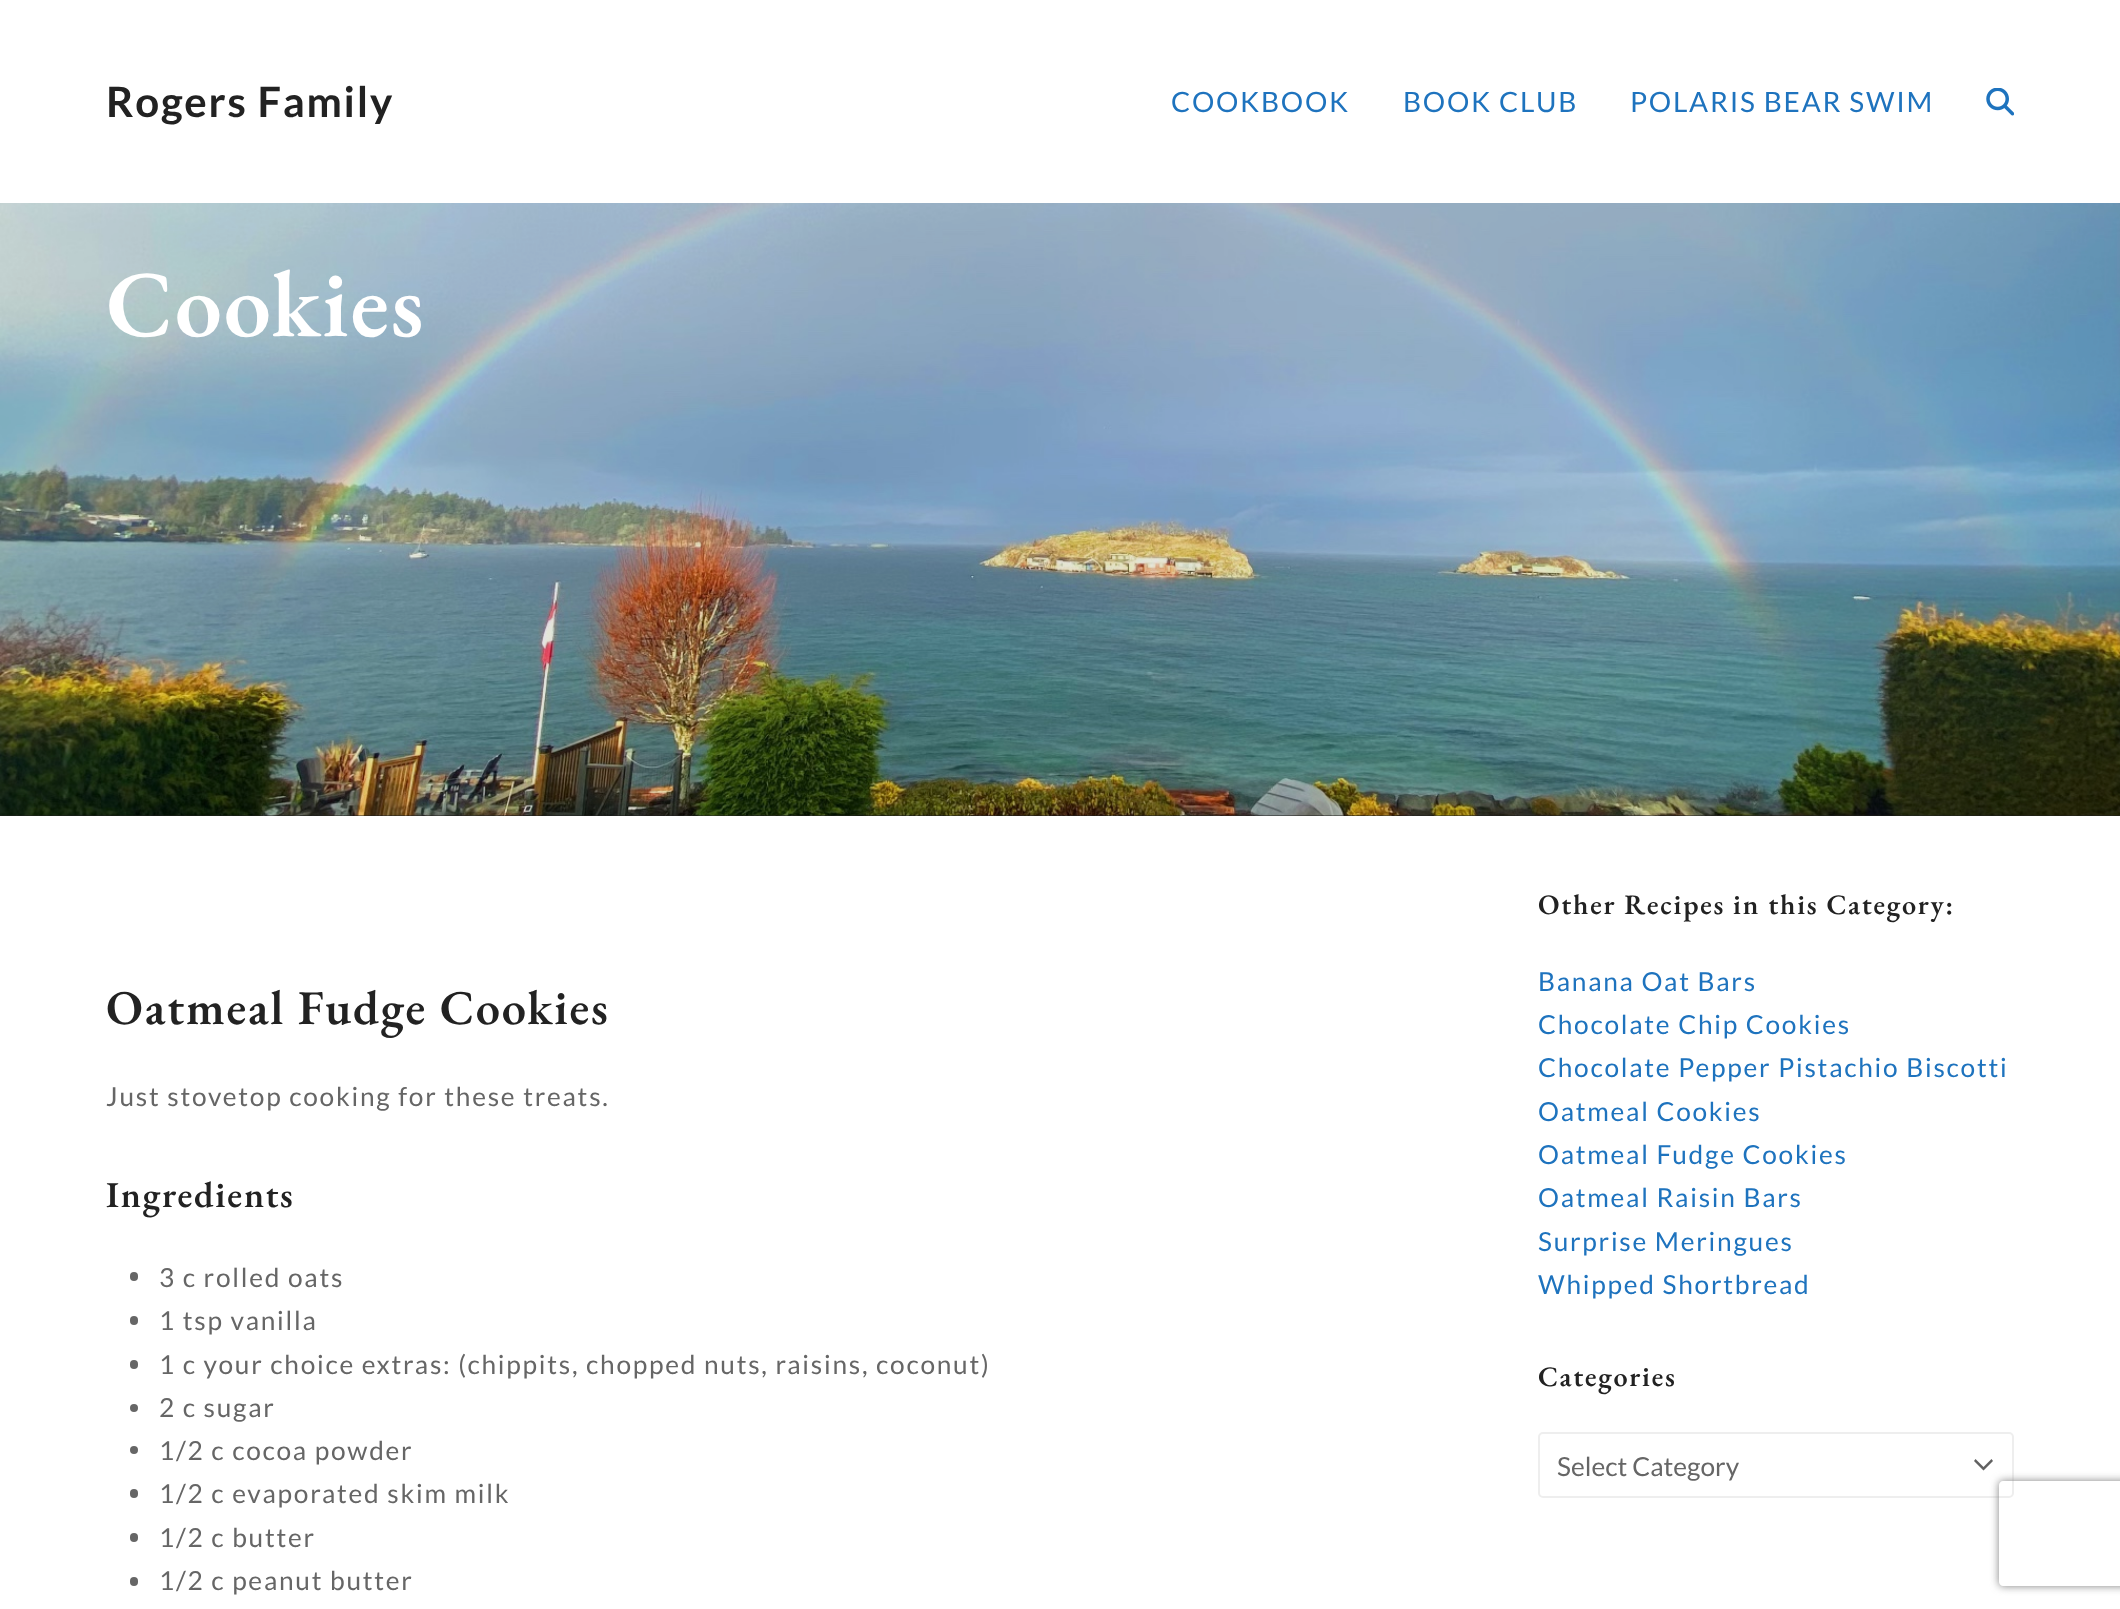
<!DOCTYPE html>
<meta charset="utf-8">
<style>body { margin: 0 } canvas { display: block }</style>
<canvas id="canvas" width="2120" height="1609"></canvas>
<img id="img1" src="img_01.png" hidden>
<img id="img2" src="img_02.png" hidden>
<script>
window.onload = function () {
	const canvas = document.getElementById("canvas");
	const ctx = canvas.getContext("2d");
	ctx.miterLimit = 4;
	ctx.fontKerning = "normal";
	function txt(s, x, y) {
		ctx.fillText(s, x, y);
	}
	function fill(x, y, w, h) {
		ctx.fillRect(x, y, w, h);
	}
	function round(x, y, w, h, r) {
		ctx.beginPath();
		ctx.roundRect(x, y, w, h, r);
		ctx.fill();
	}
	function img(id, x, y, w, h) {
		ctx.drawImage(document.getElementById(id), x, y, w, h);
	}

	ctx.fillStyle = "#FFFFFF";
	fill(0, 0, 2120, 1609);
	img("img1", 1986, 88, 28, 28);
	ctx.fillStyle = "#1F1F1F";
	fill(0, 815, 2120, 1);
	img("img2", 0, 203, 2120, 613);
	ctx.fillStyle = "#666666";
	round(130, 1272, 8, 9, 4);
	round(130, 1316, 8, 9, 4);
	round(130, 1360, 8, 9, 4);
	ctx.beginPath();
	ctx.arc(134, 1408, 4, 0, Math.PI * 2);
	ctx.fill();
	ctx.beginPath();
	ctx.arc(134, 1450, 4, 0, Math.PI * 2);
	ctx.fill();
	round(130, 1489, 8, 9, 4);
	round(130, 1533, 8, 9, 4);
	round(130, 1577, 8, 9, 4);
	ctx.beginPath();
	ctx.roundRect(1539, 1433, 474, 64, 4);
	ctx.strokeStyle = "#EEEEEE";
	ctx.lineWidth = 2;
	ctx.stroke();
	ctx.save();
	ctx.beginPath();
	ctx.moveTo(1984, 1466);
	ctx.lineTo(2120, 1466);
	ctx.lineTo(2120, 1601);
	ctx.lineTo(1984, 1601);
	ctx.closePath();
	ctx.moveTo(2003, 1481);
	ctx.lineTo(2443, 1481);
	ctx.bezierCurveTo(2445, 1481, 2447, 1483, 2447, 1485);
	ctx.lineTo(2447, 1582);
	ctx.bezierCurveTo(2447, 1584, 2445, 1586, 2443, 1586);
	ctx.lineTo(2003, 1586);
	ctx.bezierCurveTo(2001, 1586, 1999, 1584, 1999, 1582);
	ctx.lineTo(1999, 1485);
	ctx.bezierCurveTo(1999, 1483, 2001, 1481, 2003, 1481);
	ctx.closePath();
	ctx.clip("evenodd");
	ctx.fillStyle = "#808080";
	ctx.filter = "blur(4.5px)";
	ctx.beginPath();
	ctx.roundRect(1999, 1481, 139, 105, 4);
	ctx.fill();
	ctx.filter = "none";
	ctx.restore();
	ctx.fillStyle = "#616161";
	ctx.beginPath();
	ctx.moveTo(1975.5, 1459);
	ctx.lineTo(1974, 1461);
	ctx.lineTo(1983.5, 1470.5);
	ctx.lineTo(1993, 1461);
	ctx.lineTo(1991.5, 1459);
	ctx.lineTo(1983.5, 1467);
	ctx.closePath();
	ctx.fill();
	ctx.letterSpacing = "1.75px";
	ctx.font = "bold 42px Lato";
	ctx.fillStyle = "#222222";
	txt("Rogers Family", 106, 117);
	ctx.font = "28px Lato";
	ctx.fillStyle = "#1E73BE";
	txt("COOKBOOK", 1171, 112);
	txt("BOOK CLUB", 1403, 112);
	txt("POLARIS BEAR SWIM", 1630, 112);
	ctx.font = "600 94.5px EB Garamond";
	ctx.fillStyle = "#FFFFFF";
	txt("Cookies", 106, 336);
	ctx.font = "600 48.5px EB Garamond";
	ctx.fillStyle = "#222222";
	txt("Oatmeal Fudge Cookies", 106, 1024);
	ctx.font = "26.25px Lato";
	ctx.fillStyle = "#666666";
	txt("Just stovetop cooking for these treats.", 106, 1106);
	ctx.font = "600 36.5px EB Garamond";
	ctx.fillStyle = "#222222";
	txt("Ingredients", 106, 1207);
	ctx.font = "26.25px Lato";
	ctx.fillStyle = "#666666";
	txt("3 c rolled oats", 159, 1287);
	txt("1 tsp vanilla", 159, 1330);
	txt("1 c your choice extras: (chippits, chopped nuts, raisins, coconut)", 159, 1374);
	txt("2 c sugar", 159, 1417);
	txt("1/2 c cocoa powder", 159, 1460);
	txt("1/2 c evaporated skim milk", 159, 1503);
	txt("1/2 c butter", 159, 1547);
	txt("1/2 c peanut butter", 159, 1590);
	ctx.font = "600 28.25px EB Garamond";
	ctx.fillStyle = "#222222";
	txt("Other Recipes in this Category:", 1538, 914);
	ctx.font = "26.25px Lato";
	ctx.fillStyle = "#1E73BE";
	txt("Banana Oat Bars", 1538, 991);
	txt("Chocolate Chip Cookies", 1538, 1034);
	txt("Chocolate Pepper Pistachio Biscotti", 1538, 1077);
	txt("Oatmeal Cookies", 1538, 1121);
	txt("Oatmeal Fudge Cookies", 1538, 1164);
	txt("Oatmeal Raisin Bars", 1538, 1207);
	txt("Surprise Meringues", 1538, 1251);
	txt("Whipped Shortbread", 1538, 1294);
	ctx.font = "600 28.25px EB Garamond";
	ctx.fillStyle = "#222222";
	txt("Categories", 1538, 1386);
	ctx.letterSpacing = "0px";
	ctx.font = "26.25px Lato";
	ctx.fillStyle = "#666666";
	txt("Select Category", 1557, 1476);
};
</script>
